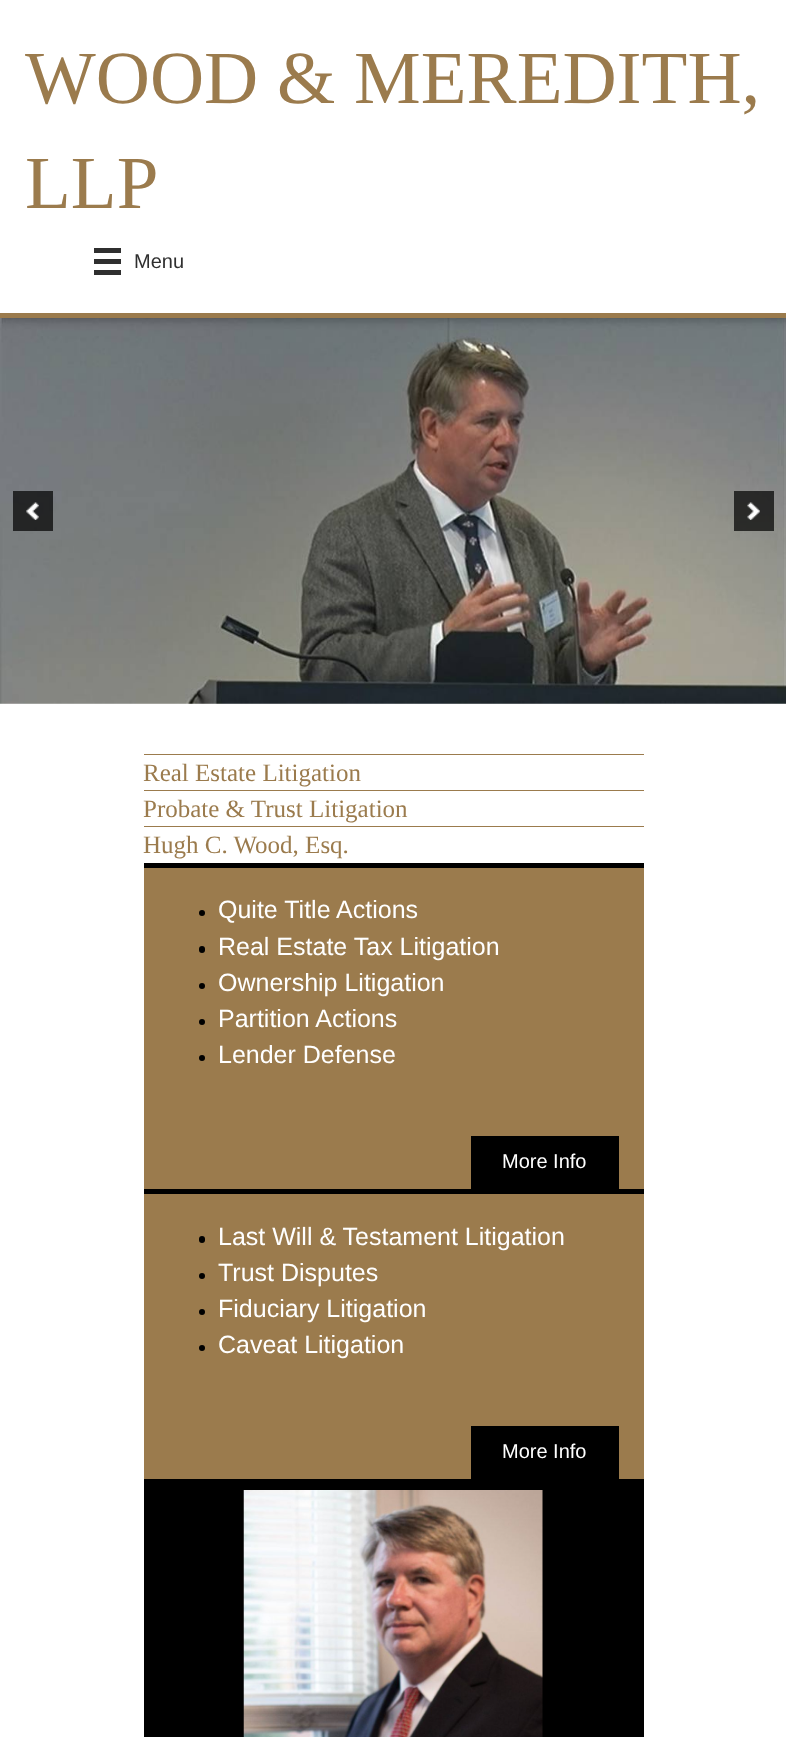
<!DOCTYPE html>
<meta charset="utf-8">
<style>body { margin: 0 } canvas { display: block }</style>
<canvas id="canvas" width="786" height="1737"></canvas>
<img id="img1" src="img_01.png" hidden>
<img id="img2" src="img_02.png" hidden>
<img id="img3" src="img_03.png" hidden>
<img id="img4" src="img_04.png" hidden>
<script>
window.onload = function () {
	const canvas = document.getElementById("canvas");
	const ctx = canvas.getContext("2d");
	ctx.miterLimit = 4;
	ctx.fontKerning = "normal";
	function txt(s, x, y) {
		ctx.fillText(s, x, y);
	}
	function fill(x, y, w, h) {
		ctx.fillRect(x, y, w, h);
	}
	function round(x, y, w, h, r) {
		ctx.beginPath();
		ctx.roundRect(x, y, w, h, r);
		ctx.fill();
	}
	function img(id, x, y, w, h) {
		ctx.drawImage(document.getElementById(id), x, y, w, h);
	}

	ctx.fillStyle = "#FFFFFF";
	fill(0, 0, 786, 1737);
	ctx.fillStyle = "#2F2F2F";
	fill(94, 248, 27, 5);
	fill(94, 259, 27, 5);
	fill(94, 270, 27, 5);
	ctx.fillStyle = "#9B7B4D";
	fill(0, 313, 786, 5);
	img("img1", 0, 318, 786, 386);
	ctx.fillStyle = "rgba(0, 0, 0, 0.7)";
	fill(13, 491, 40, 40);
	img("img2", 26, 502, 13, 18);
	fill(734, 491, 40, 40);
	img("img3", 747, 502, 13, 18);
	ctx.fillStyle = "#9B7B4D";
	fill(144, 754, 500, 1);
	fill(144, 790, 500, 1);
	fill(144, 826, 500, 1);
	fill(144, 868, 500, 321);
	ctx.fillStyle = "#000000";
	fill(144, 863, 500, 5);
	ctx.beginPath();
	ctx.arc(202, 913, 3, 0, Math.PI * 2);
	ctx.fill();
	round(199, 946, 6, 7, 3);
	ctx.beginPath();
	ctx.arc(202, 986, 3, 0, Math.PI * 2);
	ctx.fill();
	ctx.beginPath();
	ctx.arc(202, 1022, 3, 0, Math.PI * 2);
	ctx.fill();
	ctx.beginPath();
	ctx.arc(202, 1058, 3, 0, Math.PI * 2);
	ctx.fill();
	fill(471, 1136, 148, 53);
	ctx.fillStyle = "#9B7B4D";
	fill(144, 1194, 500, 285);
	ctx.fillStyle = "#000000";
	fill(144, 1189, 500, 5);
	round(199, 1236, 6, 7, 3);
	ctx.beginPath();
	ctx.arc(202, 1276, 3, 0, Math.PI * 2);
	ctx.fill();
	ctx.beginPath();
	ctx.arc(202, 1312, 3, 0, Math.PI * 2);
	ctx.fill();
	ctx.beginPath();
	ctx.arc(202, 1348, 3, 0, Math.PI * 2);
	ctx.fill();
	fill(471, 1426, 148, 53);
	fill(144, 1479, 500, 258);
	img("img4", 243, 1490, 300, 247);
	ctx.font = "75px Liberation Serif";
	ctx.fillStyle = "#9B7B4D";
	txt("WOOD & MEREDITH,", 25, 103);
	txt("LLP", 25, 208);
	ctx.font = "20px Liberation Sans";
	ctx.fillStyle = "#2F2F2F";
	txt("Menu", 134, 268);
	ctx.font = "25px Liberation Serif";
	ctx.fillStyle = "#9B7B4D";
	txt("Real Estate Litigation", 143, 781);
	txt("Probate & Trust Litigation", 143, 817);
	txt("Hugh C. Wood, Esq.", 143, 853);
	ctx.font = "25px Liberation Sans";
	ctx.fillStyle = "#FFFFFF";
	txt("Quite Title Actions", 218, 918);
	txt("Real Estate Tax Litigation", 218, 955);
	txt("Ownership Litigation", 218, 991);
	txt("Partition Actions", 218, 1027);
	txt("Lender Defense", 218, 1063);
	ctx.font = "20px Liberation Sans";
	txt("More Info", 502, 1168);
	ctx.font = "25px Liberation Sans";
	txt("Last Will & Testament Litigation", 218, 1245);
	txt("Trust Disputes", 218, 1281);
	txt("Fiduciary Litigation", 218, 1317);
	txt("Caveat Litigation", 218, 1353);
	ctx.font = "20px Liberation Sans";
	txt("More Info", 502, 1458);
};
</script>
